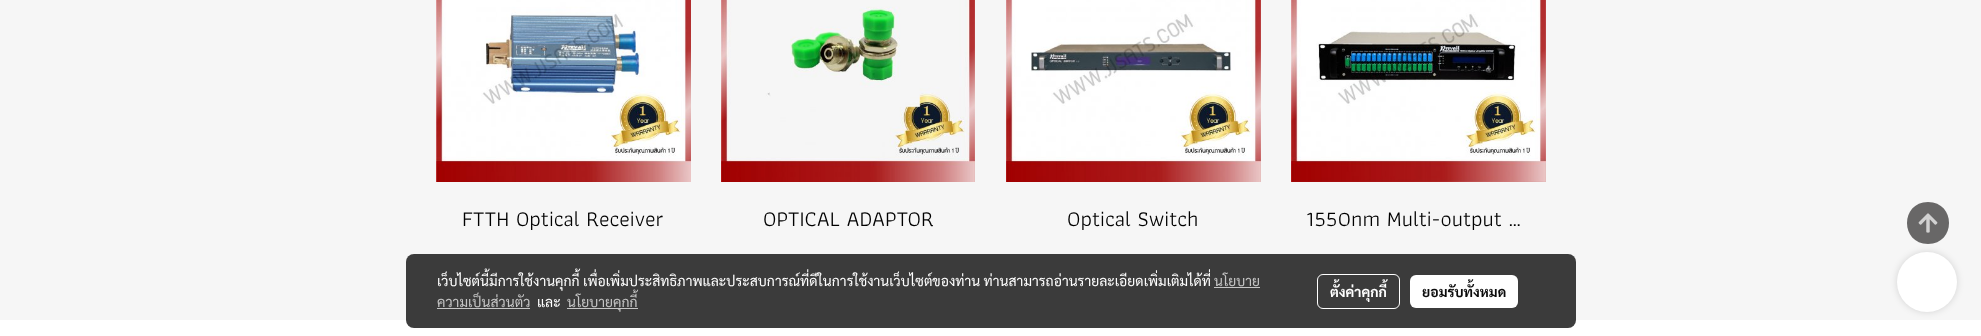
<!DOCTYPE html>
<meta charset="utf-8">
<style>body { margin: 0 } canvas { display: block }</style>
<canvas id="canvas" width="1981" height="336"></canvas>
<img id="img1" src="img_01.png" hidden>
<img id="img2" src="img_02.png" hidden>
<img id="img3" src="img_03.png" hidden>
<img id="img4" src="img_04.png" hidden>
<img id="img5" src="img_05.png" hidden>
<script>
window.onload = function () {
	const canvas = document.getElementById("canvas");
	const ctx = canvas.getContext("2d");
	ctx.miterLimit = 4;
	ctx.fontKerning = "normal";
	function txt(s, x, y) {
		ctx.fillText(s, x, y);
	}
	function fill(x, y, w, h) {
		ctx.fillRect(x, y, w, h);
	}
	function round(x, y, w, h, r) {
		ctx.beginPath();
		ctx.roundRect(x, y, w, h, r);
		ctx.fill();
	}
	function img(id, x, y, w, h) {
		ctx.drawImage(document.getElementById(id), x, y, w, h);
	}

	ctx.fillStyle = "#F6F6F6";
	fill(0, 0, 1981, 336);
	img("img1", 436, 0, 255, 182);
	img("img2", 721, 0, 254, 182);
	img("img3", 1006, 0, 255, 182);
	img("img4", 1291, 0, 255, 182);
	ctx.fillStyle = "#FFFFFF";
	fill(0, 320, 1981, 16);
	ctx.fillStyle = "rgba(0, 0, 0, 0.14)";
	ctx.filter = "blur(3.5px)";
	ctx.beginPath();
	ctx.roundRect(1897, 252, 60, 60, 30);
	ctx.fill();
	ctx.filter = "none";
	ctx.fillStyle = "#686767";
	ctx.beginPath();
	ctx.moveTo(1928, 202);
	ctx.bezierCurveTo(1900, 202, 1900, 244, 1928, 244);
	ctx.bezierCurveTo(1956, 244, 1956, 202, 1928, 202);
	ctx.closePath();
	ctx.fill();
	img("img5", 1918, 213, 20, 20);
	ctx.fillStyle = "rgba(0, 0, 0, 0.76)";
	round(406, 254, 1170, 74, 8);
	ctx.fillStyle = "#C5C5C5";
	fill(1214, 287, 46, 1);
	fill(437, 308, 93, 1);
	fill(567, 308, 71, 1);
	ctx.beginPath();
	ctx.roundRect(1317.5, 274.5, 82, 34, 5.5);
	ctx.strokeStyle = "#FFFFFF";
	ctx.stroke();
	ctx.fillStyle = "#FFFFFF";
	round(1410, 275, 108, 33, 6);
	ctx.beginPath();
	ctx.arc(1927, 282, 30, 0, Math.PI * 2);
	ctx.fill();
	ctx.font = "22px Athiti";
	ctx.fillStyle = "#000000";
	txt("FTTH Optical Receiver", 462, 226);
	txt("OPTICAL ADAPTOR", 763, 226);
	txt("Optical Switch", 1067, 226);
	txt("1550nm Multi-output …", 1306, 226);
	ctx.font = "14px Sarabun";
	ctx.fillStyle = "#FFFFFF";
	txt("เว็บไซต์นี้มีการใช้งานคุกกี้ เพื่อเพิ่มประสิทธิภาพและประสบการณ์ที่ดีในการใช้งานเว็บไซต์ของท่าน ท่านสามารถอ่านรายละเอียดเพิ่มเติมได้ที่", 437, 286);
	ctx.fillStyle = "#C5C5C5";
	txt("นโยบาย", 1214, 286);
	txt("ความเป็นส่วนตัว", 437, 307);
	ctx.fillStyle = "#FFFFFF";
	txt("และ", 537, 307);
	ctx.fillStyle = "#C5C5C5";
	txt("นโยบายคุกกี้", 567, 307);
	ctx.font = "bold 14px Sarabun";
	ctx.fillStyle = "#FFFFFF";
	txt("ตั้งค่าคุกกี้", 1330, 297);
	ctx.fillStyle = "#0C0C0C";
	txt("ยอมรับทั้งหมด", 1422, 297);
};
</script>
